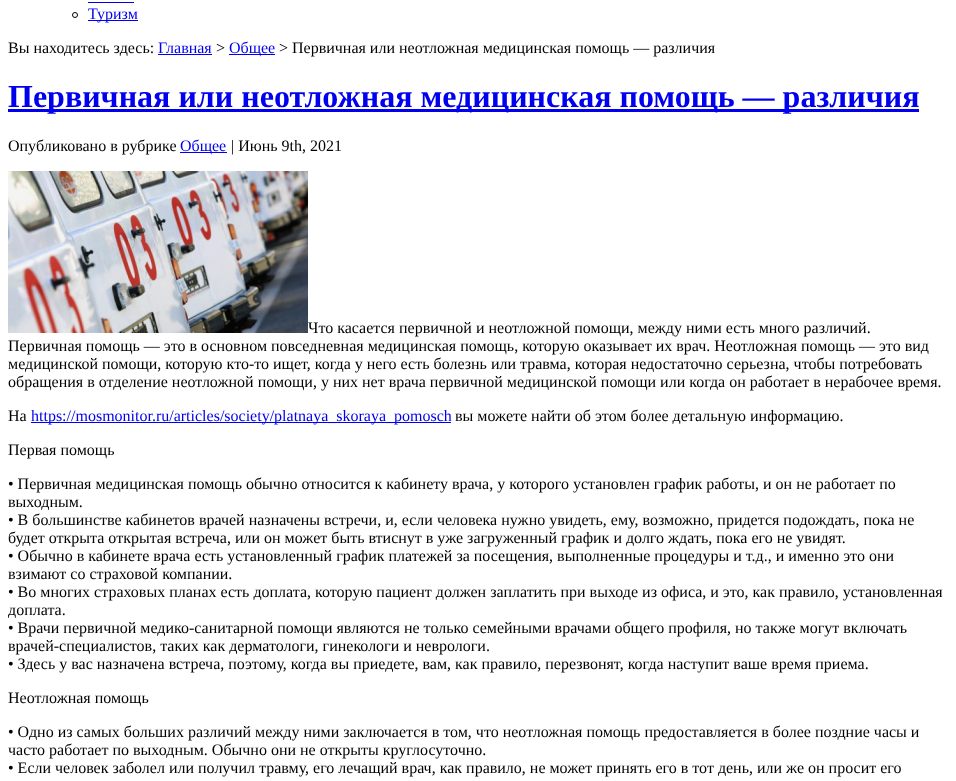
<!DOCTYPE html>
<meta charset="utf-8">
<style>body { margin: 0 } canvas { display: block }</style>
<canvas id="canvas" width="956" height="781"></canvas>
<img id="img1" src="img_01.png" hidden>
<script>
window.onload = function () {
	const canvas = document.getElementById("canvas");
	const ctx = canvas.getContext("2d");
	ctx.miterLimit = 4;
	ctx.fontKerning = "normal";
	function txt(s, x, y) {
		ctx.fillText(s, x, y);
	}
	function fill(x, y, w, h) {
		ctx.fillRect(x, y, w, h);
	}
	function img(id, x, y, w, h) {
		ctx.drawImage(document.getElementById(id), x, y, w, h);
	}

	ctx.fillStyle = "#FFFFFF";
	fill(0, 0, 956, 781);
	ctx.fillStyle = "#0000EE";
	fill(88, 2, 46, 1);
	ctx.beginPath();
	ctx.arc(75, 15, 2.5, 0, Math.PI * 2);
	ctx.strokeStyle = "#000000";
	ctx.stroke();
	fill(88, 20, 50, 1);
	fill(158, 54, 54, 1);
	fill(229, 54, 46, 1);
	fill(8, 109, 911, 3);
	fill(180, 152, 47, 1);
	img("img1", 8, 171, 300, 162);
	fill(31, 422, 420, 1);
	ctx.font = "16px Liberation Serif";
	txt("Туризм", 88, 19);
	ctx.fillStyle = "#000000";
	txt("Вы находитесь здесь:", 8, 53);
	ctx.fillStyle = "#0000EE";
	txt("Главная", 158, 53);
	ctx.fillStyle = "#000000";
	txt(">", 216, 53);
	ctx.fillStyle = "#0000EE";
	txt("Общее", 229, 53);
	ctx.fillStyle = "#000000";
	txt("> Первичная или неотложная медицинская помощь — различия", 279, 53);
	ctx.font = "bold 32px Liberation Serif";
	ctx.fillStyle = "#0000EE";
	txt("Первичная или неотложная медицинская помощь — различия", 8, 107);
	ctx.font = "16px Liberation Serif";
	ctx.fillStyle = "#000000";
	txt("Опубликовано в рубрике", 8, 151);
	ctx.fillStyle = "#0000EE";
	txt("Общее", 180, 151);
	ctx.fillStyle = "#000000";
	txt("| Июнь 9th, 2021", 231, 151);
	txt("Что касается первичной и неотложной помощи, между ними есть много различий.", 308, 333);
	txt("Первичная помощь — это в основном повседневная медицинская помощь, которую оказывает их врач. Неотложная помощь — это вид", 8, 351);
	txt("медицинской помощи, которую кто-то ищет, когда у него есть болезнь или травма, которая недостаточно серьезна, чтобы потребовать", 8, 369);
	txt("обращения в отделение неотложной помощи, у них нет врача первичной медицинской помощи или когда он работает в нерабочее время.", 8, 387);
	txt("На", 8, 421);
	ctx.fillStyle = "#0000EE";
	txt("https://mosmonitor.ru/articles/society/platnaya_skoraya_pomosch", 31, 421);
	ctx.fillStyle = "#000000";
	txt("вы можете найти об этом более детальную информацию.", 455, 421);
	txt("Первая помощь", 8, 455);
	txt("• Первичная медицинская помощь обычно относится к кабинету врача, у которого установлен график работы, и он не работает по", 8, 489);
	txt("выходным.", 8, 507);
	txt("• В большинстве кабинетов врачей назначены встречи, и, если человека нужно увидеть, ему, возможно, придется подождать, пока не", 8, 525);
	txt("будет открыта открытая встреча, или он может быть втиснут в уже загруженный график и долго ждать, пока его не увидят.", 8, 543);
	txt("• Обычно в кабинете врача есть установленный график платежей за посещения, выполненные процедуры и т.д., и именно это они", 8, 561);
	txt("взимают со страховой компании.", 8, 579);
	txt("• Во многих страховых планах есть доплата, которую пациент должен заплатить при выходе из офиса, и это, как правило, установленная", 8, 597);
	txt("доплата.", 8, 615);
	txt("• Врачи первичной медико-санитарной помощи являются не только семейными врачами общего профиля, но также могут включать", 8, 633);
	txt("врачей-специалистов, таких как дерматологи, гинекологи и неврологи.", 8, 651);
	txt("• Здесь у вас назначена встреча, поэтому, когда вы приедете, вам, как правило, перезвонят, когда наступит ваше время приема.", 8, 669);
	txt("Неотложная помощь", 8, 703);
	txt("• Одно из самых больших различий между ними заключается в том, что неотложная помощь предоставляется в более поздние часы и", 8, 737);
	txt("часто работает по выходным. Обычно они не открыты круглосуточно.", 8, 755);
	txt("• Если человек заболел или получил травму, его лечащий врач, как правило, не может принять его в тот день, или же он просит его", 8, 773);
};
</script>
